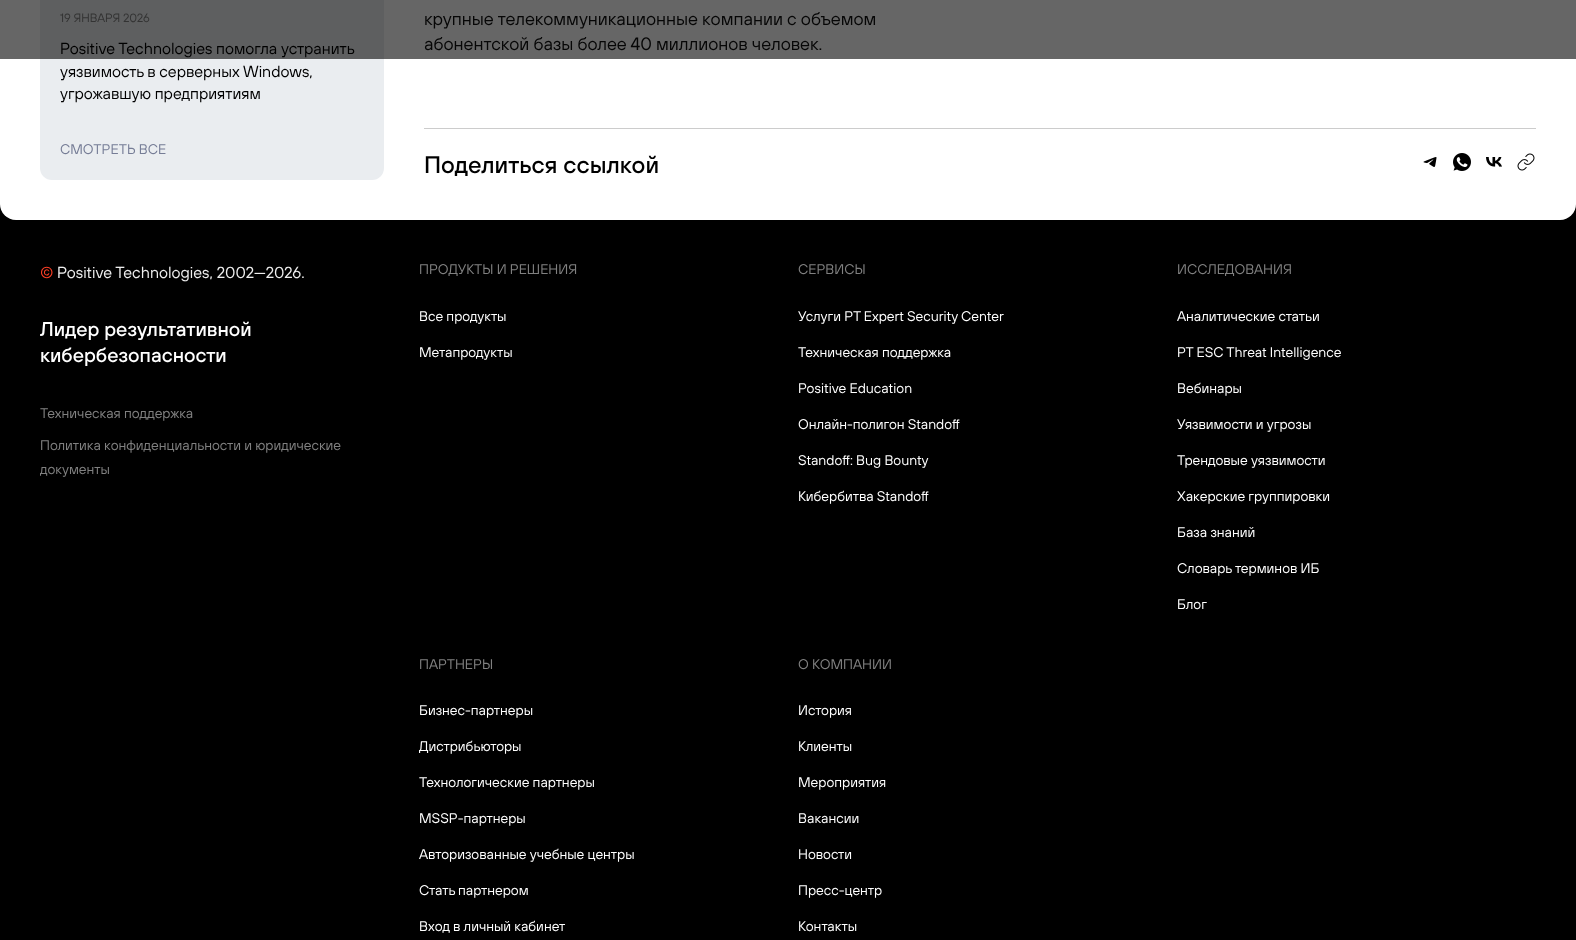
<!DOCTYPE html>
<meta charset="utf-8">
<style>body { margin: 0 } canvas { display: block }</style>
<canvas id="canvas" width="1576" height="940"></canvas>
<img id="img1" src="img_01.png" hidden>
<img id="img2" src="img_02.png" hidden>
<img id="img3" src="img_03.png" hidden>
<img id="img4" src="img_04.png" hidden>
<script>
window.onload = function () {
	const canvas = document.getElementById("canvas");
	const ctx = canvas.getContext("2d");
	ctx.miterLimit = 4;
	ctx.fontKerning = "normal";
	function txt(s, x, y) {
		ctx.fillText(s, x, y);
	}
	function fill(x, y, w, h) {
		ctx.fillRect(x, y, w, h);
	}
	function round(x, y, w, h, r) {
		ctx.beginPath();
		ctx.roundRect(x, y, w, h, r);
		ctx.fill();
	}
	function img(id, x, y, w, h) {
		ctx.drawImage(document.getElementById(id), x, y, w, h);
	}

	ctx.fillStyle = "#000000";
	fill(0, 0, 1576, 940);
	ctx.fillStyle = "#FFFFFF";
	round(0, -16, 1576, 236, 16);
	ctx.fillStyle = "#666666";
	fill(0, 0, 1576, 59);
	ctx.fillStyle = "#EAEDF0";
	round(40, -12, 344, 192, 12);
	ctx.fillStyle = "#5E5F60";
	fill(40, 0, 344, 59);
	ctx.fillStyle = "#CCCCCC";
	fill(424, 128, 1112, 1);
	img("img1", 1423, 157, 14, 10);
	img("img2", 1453, 153, 18, 18);
	img("img3", 1486, 157, 16, 10);
	img("img4", 1517, 153, 18, 18);
	ctx.font = "12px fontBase";
	ctx.fillStyle = "#333333";
	txt("19 ЯНВАРЯ 2026", 60, 22);
	ctx.font = "16px fontBase";
	ctx.fillStyle = "#000000";
	txt("Positive Technologies помогла устранить", 60, 54);
	txt("уязвимость в серверных Windows,", 60, 77);
	txt("угрожавшую предприятиям", 60, 99);
	ctx.font = "14px fontBase";
	ctx.fillStyle = "#767D96";
	txt("СМОТРЕТЬ ВСЕ", 60, 154);
	ctx.font = "18px fontBase";
	ctx.fillStyle = "#060606";
	txt("крупные телекоммуникационные компании с объемом", 424, 25);
	txt("абонентской базы более 40 миллионов человек.", 424, 50);
	ctx.font = "500 24px fontBase";
	ctx.fillStyle = "#000000";
	txt("Поделиться ссылкой", 424, 173);
	ctx.font = "16px fontBase";
	ctx.fillStyle = "#FC3E24";
	txt("©", 40, 278);
	ctx.fillStyle = "#EEEEEE";
	txt("Positive Technologies, 2002—2026.", 57, 278);
	ctx.font = "500 20px fontBase";
	ctx.fillStyle = "#FFFFFF";
	txt("Лидер результативной", 40, 336);
	txt("кибербезопасности", 40, 362);
	ctx.font = "14px fontBase";
	ctx.fillStyle = "#808080";
	txt("Техническая поддержка", 40, 418);
	txt("Политика конфиденциальности и юридические", 40, 450);
	txt("документы", 40, 474);
	txt("ПРОДУКТЫ И РЕШЕНИЯ", 419, 274);
	ctx.fillStyle = "#FFFFFF";
	txt("Все продукты", 419, 321);
	txt("Метапродукты", 419, 357);
	ctx.fillStyle = "#808080";
	txt("СЕРВИСЫ", 798, 274);
	ctx.fillStyle = "#FFFFFF";
	txt("Услуги PT Expert Security Center", 798, 321);
	txt("Техническая поддержка", 798, 357);
	txt("Positive Education", 798, 393);
	txt("Онлайн-полигон Standoff", 798, 429);
	txt("Standoff: Bug Bounty", 798, 465);
	txt("Кибербитва Standoff", 798, 501);
	ctx.fillStyle = "#808080";
	txt("ИССЛЕДОВАНИЯ", 1177, 274);
	ctx.fillStyle = "#FFFFFF";
	txt("Аналитические статьи", 1177, 321);
	txt("PT ESC Threat Intelligence", 1177, 357);
	txt("Вебинары", 1177, 393);
	txt("Уязвимости и угрозы", 1177, 429);
	txt("Трендовые уязвимости", 1177, 465);
	txt("Хакерские группировки", 1177, 501);
	txt("База знаний", 1177, 537);
	txt("Словарь терминов ИБ", 1177, 573);
	txt("Блог", 1177, 609);
	ctx.fillStyle = "#808080";
	txt("ПАРТНЕРЫ", 419, 669);
	ctx.fillStyle = "#FFFFFF";
	txt("Бизнес-партнеры", 419, 715);
	txt("Дистрибьюторы", 419, 751);
	txt("Технологические партнеры", 419, 787);
	txt("MSSP-партнеры", 419, 823);
	txt("Авторизованные учебные центры", 419, 859);
	txt("Стать партнером", 419, 895);
	txt("Вход в личный кабинет", 419, 931);
	ctx.fillStyle = "#808080";
	txt("О КОМПАНИИ", 798, 669);
	ctx.fillStyle = "#FFFFFF";
	txt("История", 798, 715);
	txt("Клиенты", 798, 751);
	txt("Мероприятия", 798, 787);
	txt("Вакансии", 798, 823);
	txt("Новости", 798, 859);
	txt("Пресс-центр", 798, 895);
	txt("Контакты", 798, 931);
};
</script>
